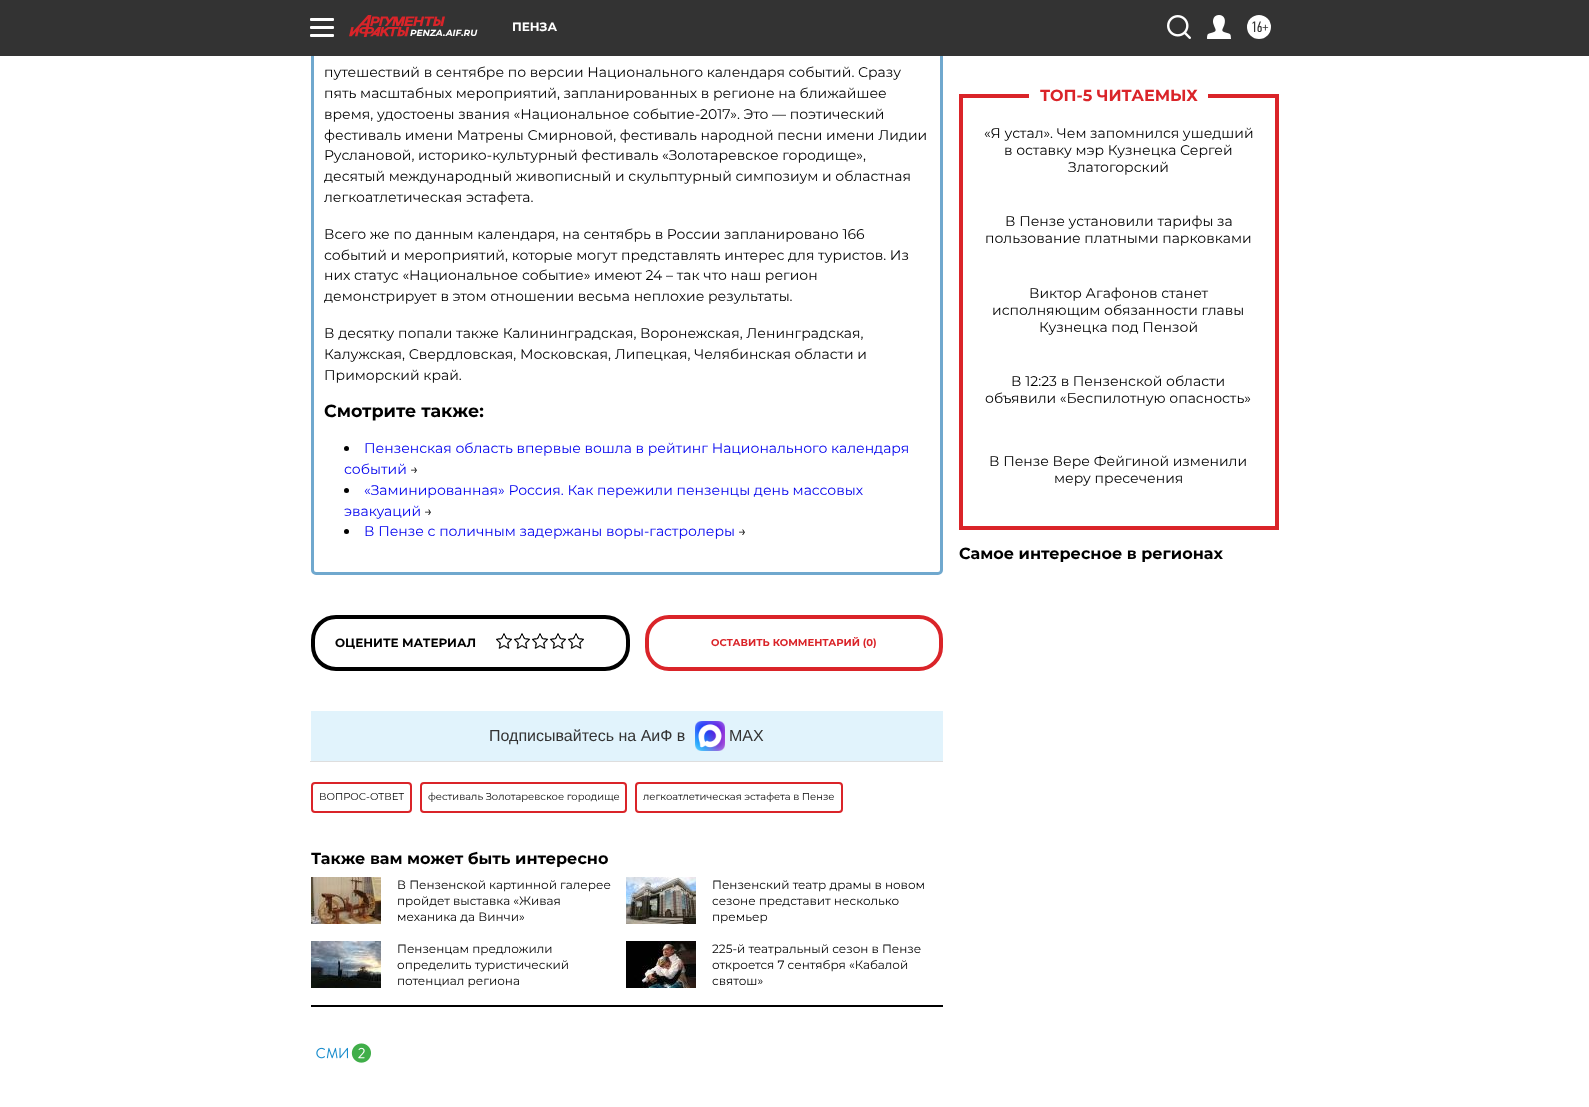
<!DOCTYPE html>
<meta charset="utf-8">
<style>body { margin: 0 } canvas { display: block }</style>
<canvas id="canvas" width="1589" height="1107"></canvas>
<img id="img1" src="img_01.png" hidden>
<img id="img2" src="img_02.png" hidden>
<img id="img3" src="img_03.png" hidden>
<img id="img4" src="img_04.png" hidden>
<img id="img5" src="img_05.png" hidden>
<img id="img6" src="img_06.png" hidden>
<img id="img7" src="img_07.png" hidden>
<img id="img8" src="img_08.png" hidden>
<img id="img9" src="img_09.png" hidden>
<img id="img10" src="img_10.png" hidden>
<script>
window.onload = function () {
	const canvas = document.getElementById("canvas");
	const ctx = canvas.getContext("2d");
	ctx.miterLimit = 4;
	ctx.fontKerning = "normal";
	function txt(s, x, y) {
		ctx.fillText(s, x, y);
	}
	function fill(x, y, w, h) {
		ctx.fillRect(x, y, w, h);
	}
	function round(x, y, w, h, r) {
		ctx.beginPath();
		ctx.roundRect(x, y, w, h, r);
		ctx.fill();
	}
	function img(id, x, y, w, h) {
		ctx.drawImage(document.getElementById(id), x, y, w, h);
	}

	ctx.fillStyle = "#FFFFFF";
	fill(0, 0, 1589, 1107);
	ctx.beginPath();
	ctx.roundRect(312.5, 3.5, 629, 570, 3.5);
	ctx.strokeStyle = "#70A8CE";
	ctx.lineWidth = 3;
	ctx.stroke();
	ctx.fillStyle = "#333333";
	fill(0, 0, 1589, 56);
	ctx.fillStyle = "#FFFFFF";
	round(310, 18, 24, 3, 1);
	round(310, 26, 24, 3, 1);
	round(310, 34, 24, 3, 1);
	img("img1", 1167, 15, 24, 24);
	img("img2", 1207, 15, 24, 24);
	ctx.beginPath();
	ctx.arc(1259, 27, 12, 0, Math.PI * 2);
	ctx.fill();
	img("img3", 349, 15, 96, 22);
	ctx.fillStyle = "#000000";
	ctx.beginPath();
	ctx.arc(346.5, 448.5, 2.5, 0, Math.PI * 2);
	ctx.fill();
	ctx.beginPath();
	ctx.arc(346.5, 490.5, 2.5, 0, Math.PI * 2);
	ctx.fill();
	ctx.beginPath();
	ctx.arc(346.5, 531.5, 2.5, 0, Math.PI * 2);
	ctx.fill();
	ctx.beginPath();
	ctx.roundRect(313, 617, 315, 52, 23);
	ctx.strokeStyle = "#000000";
	ctx.lineWidth = 4;
	ctx.stroke();
	img("img4", 496, 633, 16, 16);
	img("img4", 514, 633, 16, 16);
	img("img4", 532, 633, 16, 16);
	img("img4", 550, 633, 16, 16);
	img("img4", 568, 633, 16, 16);
	ctx.beginPath();
	ctx.roundRect(647, 617, 294, 52, 22);
	ctx.strokeStyle = "#DA2429";
	ctx.stroke();
	ctx.fillStyle = "#E1F3FC";
	fill(311, 711, 632, 50);
	ctx.fillStyle = "#DEDEDE";
	fill(310, 761, 633, 1);
	img("img5", 695, 721, 30, 30);
	ctx.beginPath();
	ctx.roundRect(312, 783, 99, 29, 3);
	ctx.lineWidth = 2;
	ctx.stroke();
	ctx.beginPath();
	ctx.roundRect(421, 783, 205, 29, 3);
	ctx.stroke();
	ctx.beginPath();
	ctx.roundRect(636, 783, 206, 29, 3);
	ctx.stroke();
	ctx.fillStyle = "#000000";
	fill(311, 1005, 632, 2);
	img("img6", 311, 877, 70, 47);
	img("img7", 626, 877, 70, 47);
	img("img8", 311, 941, 70, 47);
	img("img9", 626, 941, 70, 47);
	img("img10", 316, 1043, 55, 20);
	ctx.fillStyle = "#DA2429";
	fill(1275, 94, 4, 436);
	fill(959, 526, 320, 4);
	fill(959, 94, 4, 436);
	fill(959, 94, 70, 4);
	fill(1208, 94, 70, 4);
	ctx.font = "bold 12px Montserrat";
	ctx.fillStyle = "#FFFFFF";
	txt("ПЕНЗА", 512, 31);
	ctx.font = "15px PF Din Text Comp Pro";
	ctx.fillStyle = "#333333";
	txt("16+", 1251, 32);
	ctx.font = "italic bold 9px Montserrat";
	ctx.fillStyle = "#FFFFFF";
	txt("PENZA.AIF.RU", 410, 36);
	ctx.font = "14px Montserrat";
	ctx.fillStyle = "#000000";
	txt("путешествий в сентябре по версии Национального календаря событий. Сразу", 324, 77);
	txt("пять масштабных мероприятий, запланированных в регионе на ближайшее", 324, 98);
	txt("время, удостоены звания «Национальное событие-2017». Это — поэтический", 324, 119);
	txt("фестиваль имени Матрены Смирновой, фестиваль народной песни имени Лидии", 324, 140);
	txt("Руслановой, историко-культурный фестиваль «Золотаревское городище»,", 324, 160);
	txt("десятый международный живописный и скульптурный симпозиум и областная", 324, 181);
	txt("легкоатлетическая эстафета.", 324, 202);
	txt("Всего же по данным календаря, на сентябрь в России запланировано 166", 324, 239);
	txt("событий и мероприятий, которые могут представлять интерес для туристов. Из", 324, 260);
	txt("них статус «Национальное событие» имеют 24 – так что наш регион", 324, 280);
	txt("демонстрирует в этом отношении весьма неплохие результаты.", 324, 301);
	txt("В десятку попали также Калининградская, Воронежская, Ленинградская,", 324, 338);
	txt("Калужская, Свердловская, Московская, Липецкая, Челябинская области и", 324, 359);
	txt("Приморский край.", 324, 380);
	ctx.font = "bold 17.5px Montserrat";
	txt("Смотрите также:", 324, 417);
	ctx.font = "14px Montserrat";
	ctx.fillStyle = "#0000EE";
	txt("Пензенская область впервые вошла в рейтинг Национального календаря", 364, 453);
	txt("событий", 344, 474);
	ctx.fillStyle = "#000000";
	txt("→", 410, 474);
	ctx.fillStyle = "#0000EE";
	txt("«Заминированная» Россия. Как пережили пензенцы день массовых", 364, 495);
	txt("эвакуаций", 344, 516);
	ctx.fillStyle = "#000000";
	txt("→", 424, 516);
	ctx.fillStyle = "#0000EE";
	txt("В Пензе с поличным задержаны воры-гастролеры", 364, 536);
	ctx.fillStyle = "#000000";
	txt("→", 738, 536);
	ctx.font = "bold 12px Montserrat";
	txt("ОЦЕНИТЕ МАТЕРИАЛ", 335, 647);
	ctx.font = "bold 10px Montserrat";
	ctx.fillStyle = "#DA2429";
	txt("ОСТАВИТЬ КОММЕНТАРИЙ (0)", 711, 646);
	ctx.font = "16px Liberation Sans";
	ctx.fillStyle = "#333333";
	txt("Подписывайтесь на АиФ в", 489, 741);
	txt("MAX", 729, 741);
	ctx.font = "10px Montserrat";
	ctx.fillStyle = "#000000";
	txt("ВОПРОС-ОТВЕТ", 319, 800);
	txt("фестиваль Золотаревское городище", 428, 800);
	txt("легкоатлетическая эстафета в Пензе", 643, 800);
	ctx.font = "bold 16px Montserrat";
	txt("Также вам может быть интересно", 311, 864);
	ctx.font = "12px Montserrat";
	txt("В Пензенской картинной галерее", 397, 889);
	txt("пройдет выставка «Живая", 397, 905);
	txt("механика да Винчи»", 397, 921);
	txt("Пензенский театр драмы в новом", 712, 889);
	txt("сезоне представит несколько", 712, 905);
	txt("премьер", 712, 921);
	txt("Пензенцам предложили", 397, 953);
	txt("определить туристический", 397, 969);
	txt("потенциал региона", 397, 985);
	txt("225-й театральный сезон в Пензе", 712, 953);
	txt("откроется 7 сентября «Кабалой", 712, 969);
	txt("святош»", 712, 985);
	ctx.font = "bold 16px Montserrat";
	ctx.fillStyle = "#DA2429";
	txt("ТОП-5 ЧИТАЕМЫХ", 1040, 101);
	ctx.font = "14px Montserrat";
	ctx.fillStyle = "#000000";
	txt("«Я устал». Чем запомнился ушедший", 984, 138);
	txt("в оставку мэр Кузнецка Сергей", 1004, 155);
	txt("Златогорский", 1068, 172);
	txt("В Пензе установили тарифы за", 1005, 226);
	txt("пользование платными парковками", 985, 243);
	txt("Виктор Агафонов станет", 1029, 298);
	txt("исполняющим обязанности главы", 992, 315);
	txt("Кузнецка под Пензой", 1039, 332);
	txt("В 12:23 в Пензенской области", 1011, 386);
	txt("объявили «Беспилотную опасность»", 985, 403);
	txt("В Пензе Вере Фейгиной изменили", 989, 466);
	txt("меру пресечения", 1054, 483);
	ctx.font = "bold 16px Montserrat";
	txt("Самое интересное в регионах", 959, 559);
};
</script>
